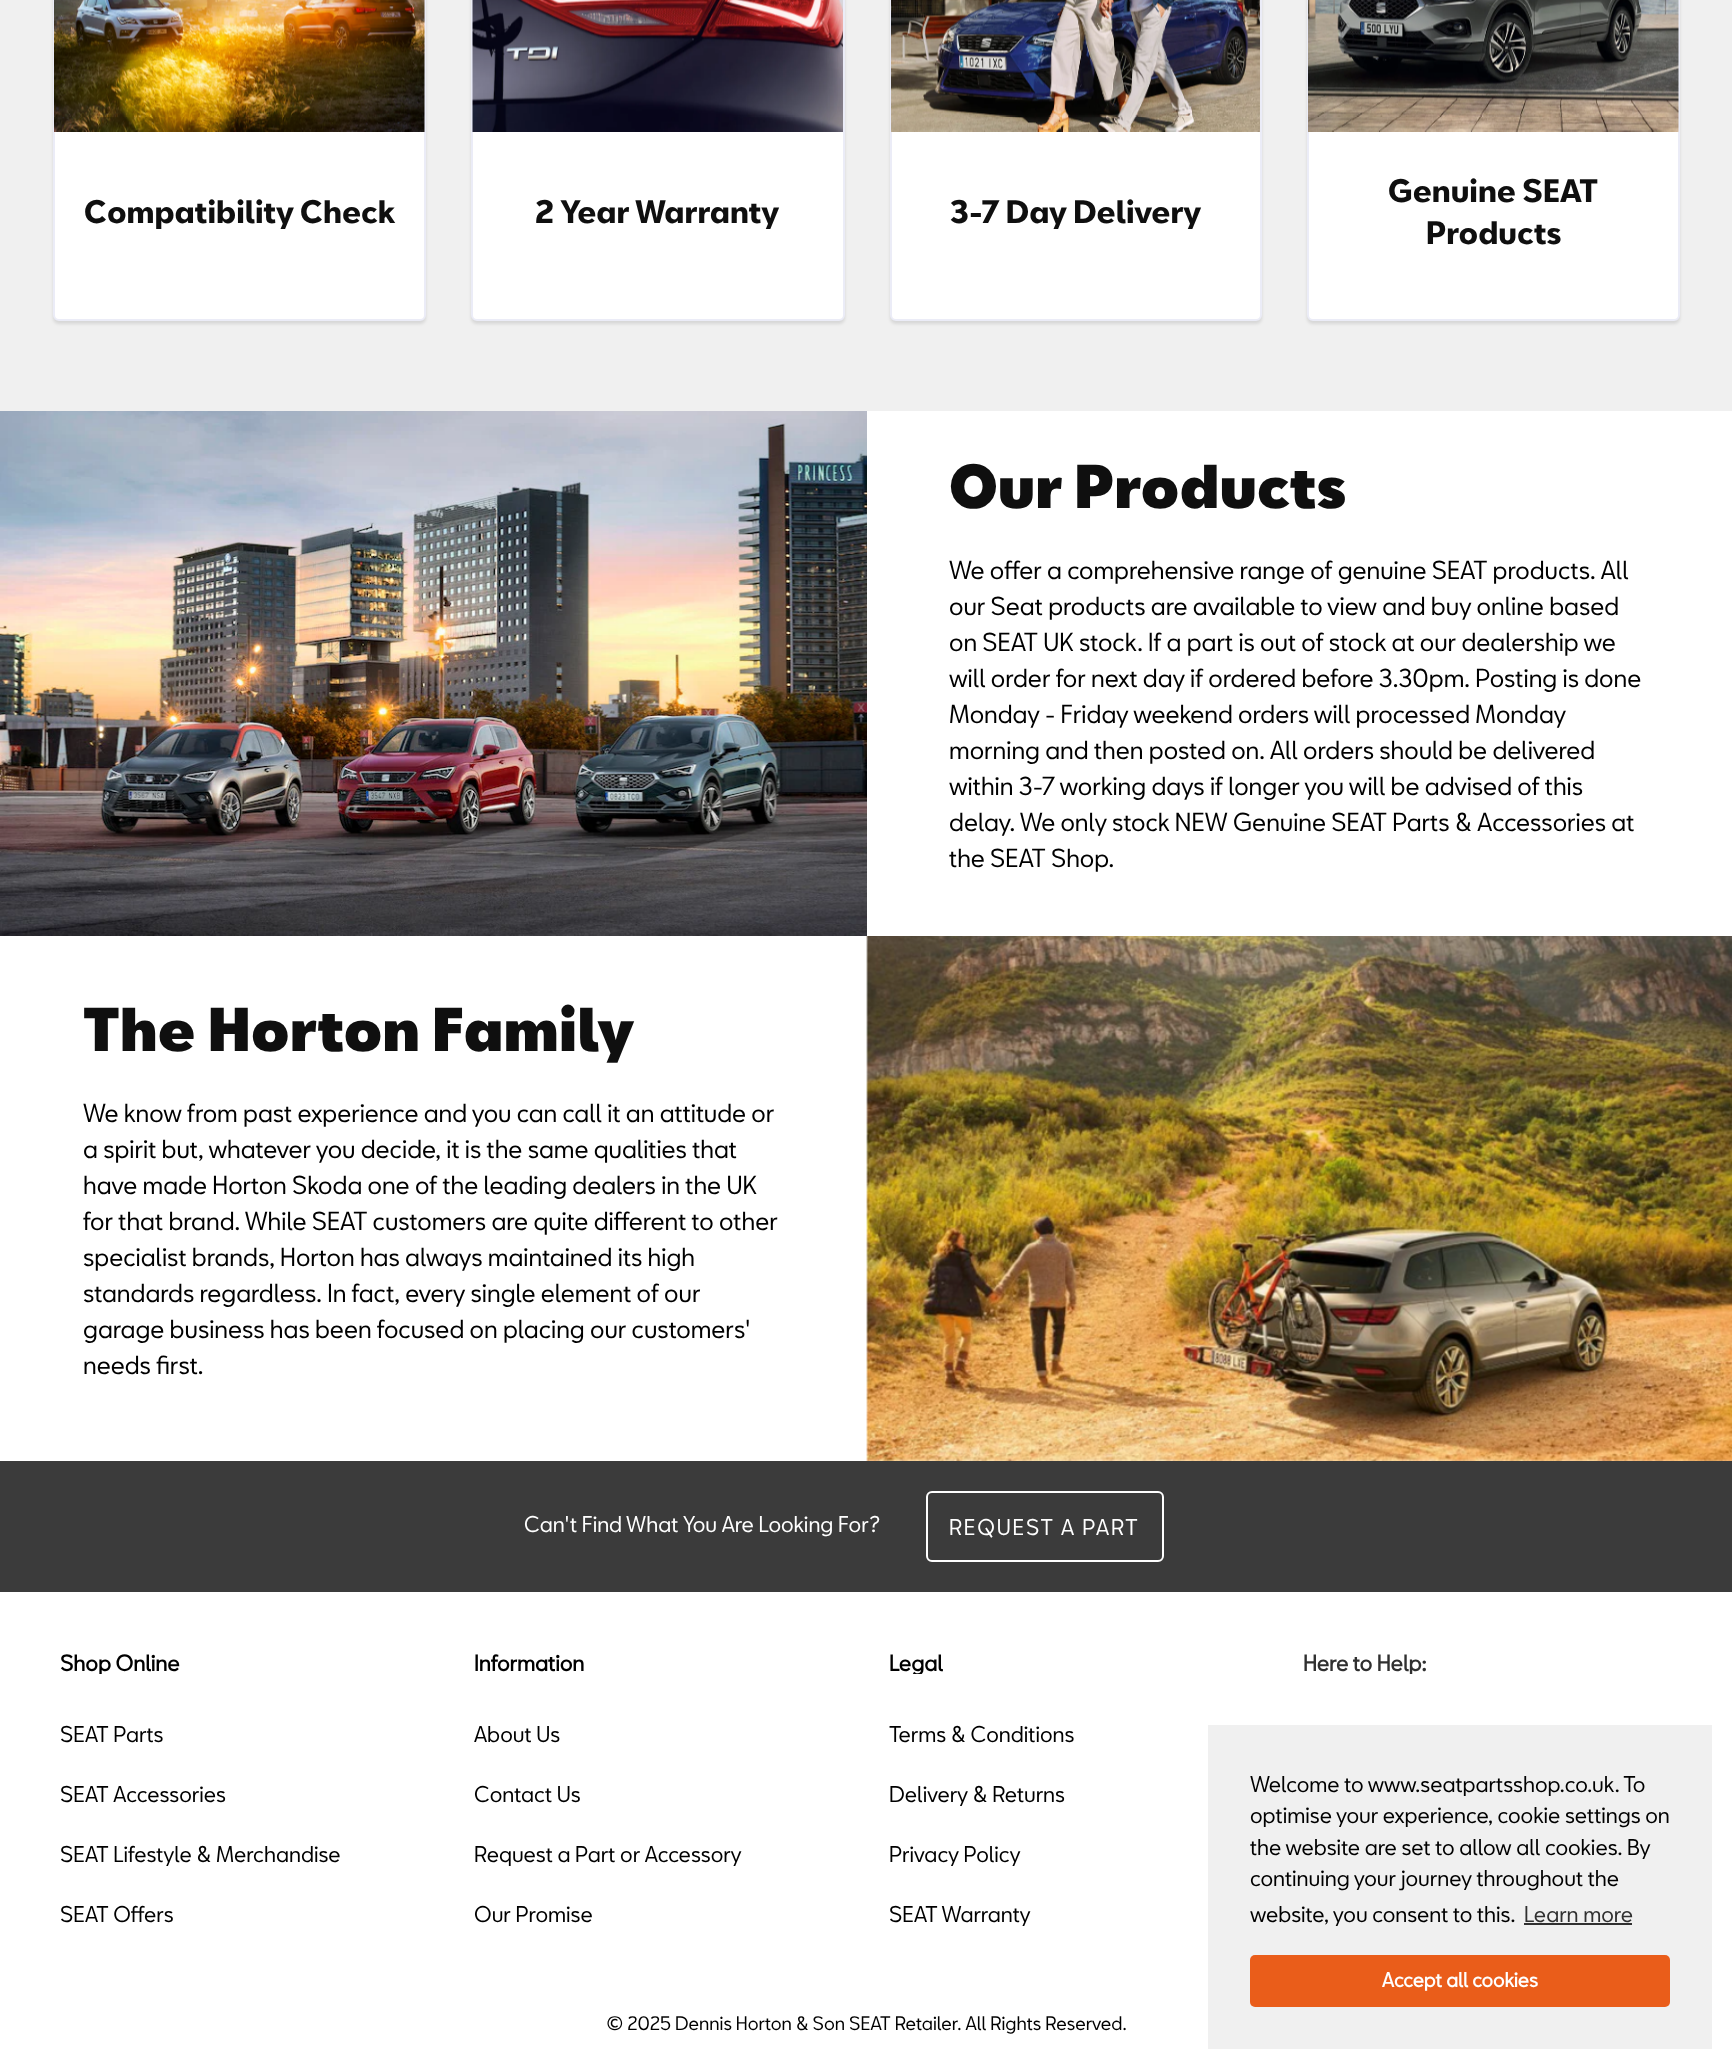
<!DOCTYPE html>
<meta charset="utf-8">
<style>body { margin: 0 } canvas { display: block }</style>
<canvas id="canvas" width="1732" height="2070"></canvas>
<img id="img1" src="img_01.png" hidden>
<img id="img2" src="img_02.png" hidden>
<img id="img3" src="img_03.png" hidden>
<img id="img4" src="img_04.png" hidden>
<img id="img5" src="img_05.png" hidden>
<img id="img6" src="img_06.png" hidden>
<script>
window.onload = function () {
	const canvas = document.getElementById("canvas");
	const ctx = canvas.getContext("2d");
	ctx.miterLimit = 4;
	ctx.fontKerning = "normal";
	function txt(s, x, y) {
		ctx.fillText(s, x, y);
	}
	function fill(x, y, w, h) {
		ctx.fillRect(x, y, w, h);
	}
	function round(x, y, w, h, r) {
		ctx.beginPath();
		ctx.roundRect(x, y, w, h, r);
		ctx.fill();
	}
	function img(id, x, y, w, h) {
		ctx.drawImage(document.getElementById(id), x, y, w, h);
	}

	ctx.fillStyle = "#FFFFFF";
	fill(0, 0, 1732, 2070);
	ctx.fillStyle = "#F0F0F0";
	fill(0, 0, 1732, 411);
	ctx.fillStyle = "rgba(0, 0, 0, 0.1)";
	ctx.filter = "blur(1.5px)";
	ctx.beginPath();
	ctx.roundRect(53, -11, 373, 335, 6);
	ctx.fill();
	ctx.filter = "none";
	ctx.fillStyle = "#FFFFFF";
	ctx.beginPath();
	ctx.roundRect(54, -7, 371, 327, 5);
	ctx.fill();
	ctx.strokeStyle = "#EBECF7";
	ctx.lineWidth = 2;
	ctx.stroke();
	img("img1", 54, 0, 371, 132);
	ctx.fillStyle = "rgba(0, 0, 0, 0.1)";
	ctx.filter = "blur(1.5px)";
	ctx.beginPath();
	ctx.roundRect(471, -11, 374, 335, 6);
	ctx.fill();
	ctx.filter = "none";
	ctx.fillStyle = "#FFFFFF";
	ctx.beginPath();
	ctx.roundRect(472, -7, 372, 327, 5);
	ctx.fill();
	ctx.stroke();
	img("img2", 472, 0, 371, 132);
	ctx.fillStyle = "rgba(0, 0, 0, 0.1)";
	ctx.filter = "blur(1.5px)";
	ctx.beginPath();
	ctx.roundRect(890, -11, 372, 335, 6);
	ctx.fill();
	ctx.filter = "none";
	ctx.fillStyle = "#FFFFFF";
	ctx.beginPath();
	ctx.roundRect(891, -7, 370, 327, 5);
	ctx.fill();
	ctx.stroke();
	img("img3", 891, 0, 369, 132);
	ctx.fillStyle = "rgba(0, 0, 0, 0.1)";
	ctx.filter = "blur(1.5px)";
	ctx.beginPath();
	ctx.roundRect(1307, -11, 373, 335, 6);
	ctx.fill();
	ctx.filter = "none";
	ctx.fillStyle = "#FFFFFF";
	ctx.beginPath();
	ctx.roundRect(1308, -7, 371, 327, 5);
	ctx.fill();
	ctx.stroke();
	img("img4", 1308, 0, 371, 132);
	img("img5", 0, 411, 867, 525);
	img("img6", 866, 936, 866, 525);
	ctx.fillStyle = "#3B3B3B";
	fill(0, 1461, 1732, 131);
	ctx.beginPath();
	ctx.roundRect(927, 1492, 236, 69, 5);
	ctx.strokeStyle = "#FFFFFF";
	ctx.stroke();
	ctx.fillStyle = "#F0F0F0";
	fill(1208, 1725, 504, 324);
	ctx.fillStyle = "#303030";
	fill(1524, 1923, 108, 2);
	ctx.fillStyle = "#EA5D1A";
	round(1250, 1955, 420, 52, 5);
	ctx.font = "bold 30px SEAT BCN";
	ctx.fillStyle = "#0F0F0F";
	txt("Compatibility Check", 84, 223);
	txt("2 Year Warranty", 535, 223);
	txt("3-7 Day Delivery", 950, 223);
	txt("Genuine SEAT", 1388, 202);
	txt("Products", 1426, 244);
	ctx.font = "900 57px SEAT BCN";
	txt("Our Products", 949, 508);
	ctx.font = "24px SEAT BCN";
	ctx.fillStyle = "#000000";
	txt("We offer a comprehensive range of genuine SEAT products. All", 949, 579);
	txt("our Seat products are available to view and buy online based", 949, 615);
	txt("on SEAT UK stock. If a part is out of stock at our dealership we", 949, 651);
	txt("will order for next day if ordered before 3.30pm. Posting is done", 949, 687);
	txt("Monday - Friday weekend orders will processed Monday", 949, 723);
	txt("morning and then posted on. All orders should be delivered", 949, 759);
	txt("within 3-7 working days if longer you will be advised of this", 949, 795);
	txt("delay. We only stock NEW Genuine SEAT Parts & Accessories at", 949, 831);
	txt("the SEAT Shop.", 949, 867);
	ctx.font = "900 57px SEAT BCN";
	ctx.fillStyle = "#0F0F0F";
	txt("The Horton Family", 83, 1051);
	ctx.font = "24px SEAT BCN";
	ctx.fillStyle = "#000000";
	txt("We know from past experience and you can call it an attitude or", 83, 1122);
	txt("a spirit but, whatever you decide, it is the same qualities that", 83, 1158);
	txt("have made Horton Skoda one of the leading dealers in the UK", 83, 1194);
	txt("for that brand. While SEAT customers are quite different to other", 83, 1230);
	txt("specialist brands, Horton has always maintained its high", 83, 1266);
	txt("standards regardless. In fact, every single element of our", 83, 1302);
	txt("garage business has been focused on placing our customers'", 83, 1338);
	txt("needs first.", 83, 1374);
	ctx.font = "21px SEAT BCN";
	ctx.fillStyle = "#FFFFFF";
	txt("Can't Find What You Are Looking For?", 524, 1532);
	ctx.letterSpacing = "1.75px";
	txt("REQUEST A PART", 949, 1535);
	ctx.save();
	ctx.beginPath();
	ctx.rect(60, 1652, 270, 22);
	ctx.clip();
	ctx.letterSpacing = "0px";
	ctx.font = "bold 21px 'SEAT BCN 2'";
	ctx.fillStyle = "#000000";
	txt("Shop Online", 60, 1671);
	ctx.restore();
	ctx.letterSpacing = "0px";
	ctx.fillStyle = "#000000";
	txt("SEAT Parts", 60, 1742);
	txt("SEAT Accessories", 60, 1802);
	txt("SEAT Lifestyle & Merchandise", 60, 1862);
	txt("SEAT Offers", 60, 1922);
	ctx.font = "bold 21px 'SEAT BCN 2'";
	txt("Information", 474, 1671);
	ctx.font = "21px SEAT BCN";
	txt("About Us", 474, 1742);
	txt("Contact Us", 474, 1802);
	txt("Request a Part or Accessory", 474, 1862);
	txt("Our Promise", 474, 1922);
	ctx.save();
	ctx.beginPath();
	ctx.rect(890, 1652, 270, 22);
	ctx.clip();
	ctx.font = "bold 21px 'SEAT BCN 2'";
	txt("Legal", 889, 1671);
	ctx.restore();
	txt("Terms & Conditions", 889, 1742);
	txt("Delivery & Returns", 889, 1802);
	txt("Privacy Policy", 889, 1862);
	txt("SEAT Warranty", 889, 1922);
	ctx.save();
	ctx.beginPath();
	ctx.rect(1304, 1652, 270, 22);
	ctx.clip();
	ctx.font = "bold 21px 'SEAT BCN 2'";
	ctx.fillStyle = "#303030";
	txt("Here to Help:", 1303, 1671);
	ctx.restore();
	ctx.font = "18px SEAT BCN";
	txt("© 2025 Dennis Horton & Son SEAT Retailer. All Rights Reserved.", 606, 2030);
	ctx.font = "21px SEAT BCN";
	txt("Welcome to www.seatpartsshop.co.uk. To", 1250, 1792);
	txt("optimise your experience, cookie settings on", 1250, 1823);
	txt("the website are set to allow all cookies. By", 1250, 1855);
	txt("continuing your journey throughout the", 1250, 1886);
	txt("website, you consent to this.", 1250, 1922);
	ctx.fillStyle = "#303030";
	txt("Learn more", 1524, 1922);
	ctx.font = "bold 19px 'SEAT BCN 2'";
	ctx.fillStyle = "#FFFFFF";
	txt("Accept all cookies", 1382, 1987);
};
</script>
